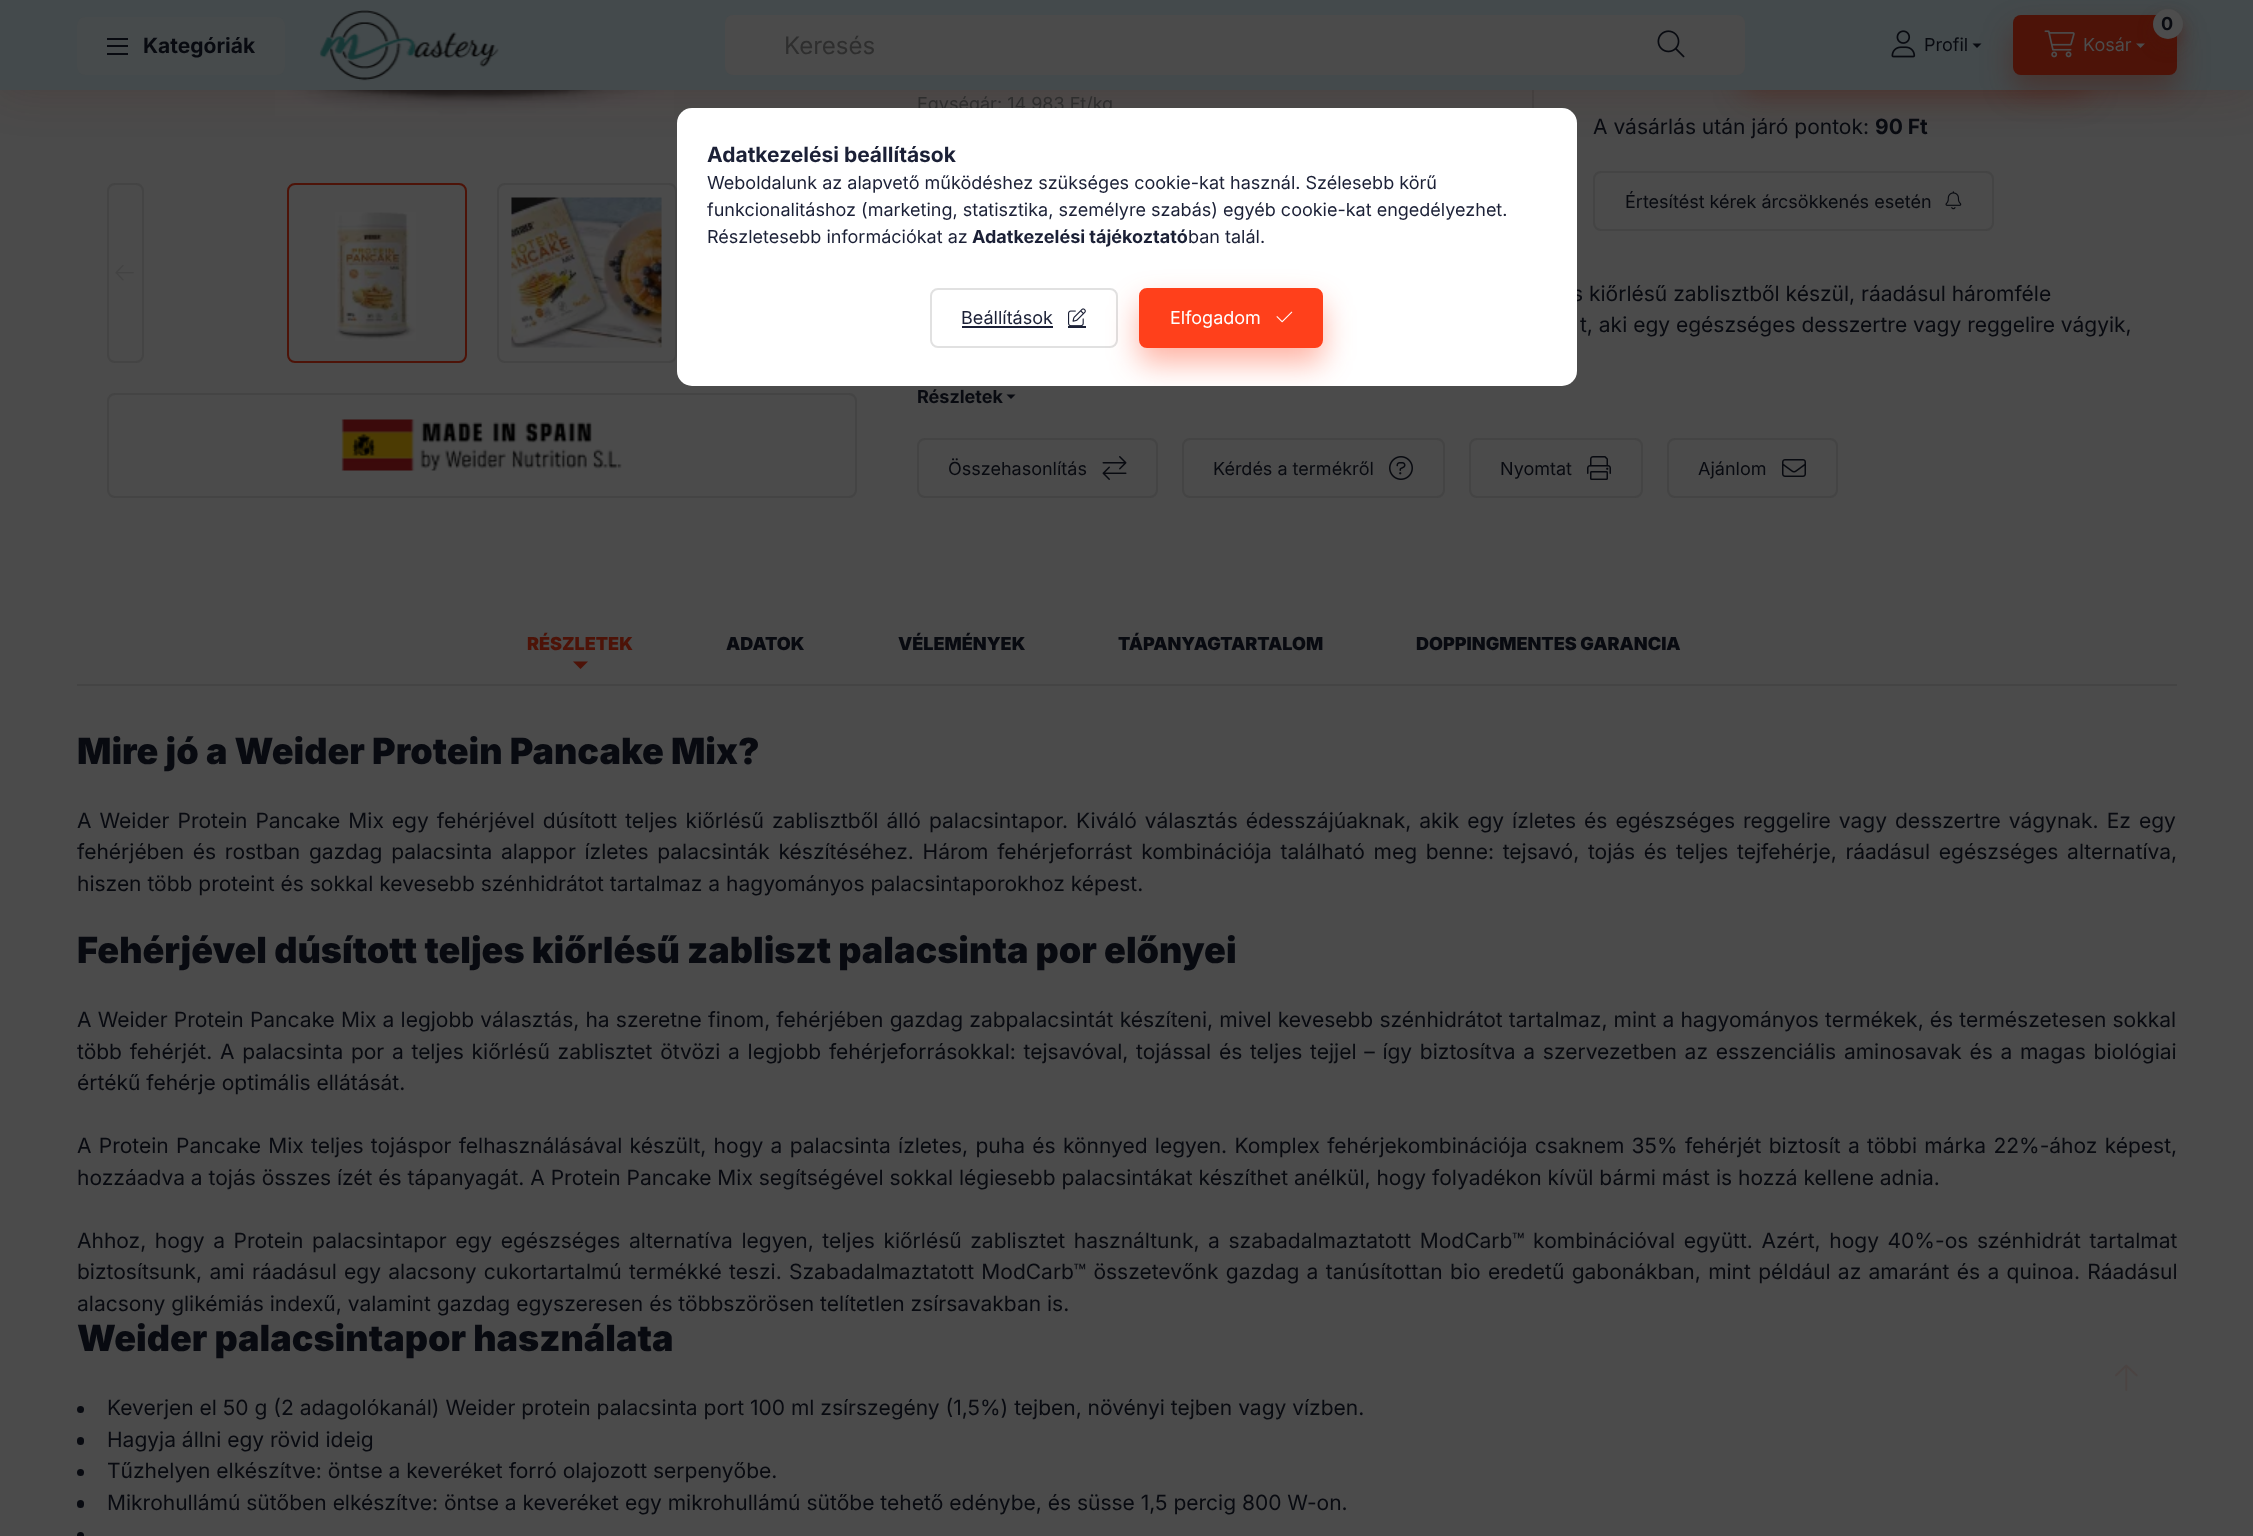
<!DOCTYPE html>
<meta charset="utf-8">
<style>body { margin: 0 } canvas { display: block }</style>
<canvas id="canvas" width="2253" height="1536"></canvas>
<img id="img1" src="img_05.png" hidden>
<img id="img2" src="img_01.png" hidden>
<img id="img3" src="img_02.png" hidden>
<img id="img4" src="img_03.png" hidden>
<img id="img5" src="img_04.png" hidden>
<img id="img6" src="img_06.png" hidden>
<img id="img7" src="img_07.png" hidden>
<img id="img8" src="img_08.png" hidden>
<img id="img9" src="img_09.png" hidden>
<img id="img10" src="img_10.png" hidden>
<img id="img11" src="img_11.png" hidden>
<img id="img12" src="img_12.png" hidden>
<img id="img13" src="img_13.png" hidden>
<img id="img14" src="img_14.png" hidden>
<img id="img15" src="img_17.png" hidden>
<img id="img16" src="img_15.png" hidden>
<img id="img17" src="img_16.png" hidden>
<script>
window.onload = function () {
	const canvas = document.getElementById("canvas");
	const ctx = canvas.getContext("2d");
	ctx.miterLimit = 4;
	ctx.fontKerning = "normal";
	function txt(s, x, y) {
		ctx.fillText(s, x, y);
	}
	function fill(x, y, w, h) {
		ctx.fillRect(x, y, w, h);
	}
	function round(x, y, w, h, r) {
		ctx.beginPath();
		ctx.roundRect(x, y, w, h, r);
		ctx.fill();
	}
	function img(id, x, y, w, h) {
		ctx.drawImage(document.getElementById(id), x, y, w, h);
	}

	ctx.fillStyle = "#4B4B4B";
	fill(0, 0, 2253, 1536);
	img("img1", 275, 90, 399, 26);
	ctx.fillStyle = "#444444";
	fill(1532, 90, 2, 18);
	ctx.fillStyle = "rgba(77, 19, 8, 0.2)";
	ctx.filter = "blur(22.5px)";
	ctx.beginPath();
	ctx.rect(0, 0, 2253, 90);
	ctx.fill();
	ctx.filter = "none";
	ctx.fillStyle = "rgba(77, 19, 8, 0.4)";
	ctx.filter = "blur(15px)";
	ctx.beginPath();
	ctx.roundRect(1743, 5, 345, 90, 8);
	ctx.fill();
	ctx.filter = "none";
	ctx.fillStyle = "#444A4C";
	fill(0, 0, 2253, 90);
	ctx.fillStyle = "#474B4C";
	round(77, 17, 208, 58, 8);
	ctx.fillStyle = "#080A10";
	fill(107, 38, 21, 2);
	fill(107, 45, 21, 2);
	fill(107, 53, 21, 2);
	img("img2", 319, 10, 180, 71);
	ctx.fillStyle = "#4B4B4B";
	round(725, 15, 1020, 60, 8);
	img("img3", 1657, 30, 28, 28);
	img("img4", 1891, 30, 25, 28);
	ctx.fillStyle = "rgba(77, 19, 8, 0.4)";
	ctx.filter = "blur(15px)";
	ctx.beginPath();
	ctx.roundRect(2013, 30, 164, 60, 8);
	ctx.fill();
	ctx.filter = "none";
	ctx.fillStyle = "#080A10";
	ctx.beginPath();
	ctx.moveTo(1972.5, 43.5);
	ctx.lineTo(1981.5, 43.5);
	ctx.lineTo(1977, 48);
	ctx.closePath();
	ctx.fill();
	ctx.fillStyle = "#4D1308";
	round(2013, 15, 164, 60, 8);
	ctx.fillStyle = "rgba(77, 19, 8, 0.4)";
	ctx.filter = "blur(7.5px)";
	ctx.beginPath();
	ctx.roundRect(2153, 17, 30, 30, 15);
	ctx.fill();
	ctx.filter = "none";
	ctx.fillStyle = "#4D4D4D";
	ctx.beginPath();
	ctx.arc(2168, 24, 15, 0, Math.PI * 2);
	ctx.fill();
	img("img5", 2044, 30, 31, 28);
	ctx.beginPath();
	ctx.moveTo(2136, 43.5);
	ctx.lineTo(2145, 43.5);
	ctx.lineTo(2140.5, 48);
	ctx.closePath();
	ctx.fill();
	ctx.beginPath();
	ctx.roundRect(108, 184, 35, 178, 7);
	ctx.strokeStyle = "#444444";
	ctx.lineWidth = 2;
	ctx.stroke();
	img("img6", 115, 265, 19, 16);
	ctx.beginPath();
	ctx.roundRect(288, 184, 178, 178, 7);
	ctx.strokeStyle = "#4D1308";
	ctx.stroke();
	img("img7", 335, 212, 81, 129);
	ctx.beginPath();
	ctx.roundRect(498, 184, 178, 178, 7);
	ctx.strokeStyle = "#444444";
	ctx.stroke();
	img("img8", 511, 197, 151, 151);
	ctx.beginPath();
	ctx.roundRect(108, 394, 748, 103, 7);
	ctx.stroke();
	img("img9", 341, 419, 281, 52);
	ctx.beginPath();
	ctx.roundRect(1594, 172, 399, 58, 7);
	ctx.stroke();
	img("img10", 1945, 191, 17, 19);
	ctx.fillStyle = "#080A10";
	ctx.beginPath();
	ctx.moveTo(1006.5, 394.5);
	ctx.lineTo(1015.5, 394.5);
	ctx.lineTo(1011, 399);
	ctx.closePath();
	ctx.fill();
	ctx.beginPath();
	ctx.roundRect(918, 439, 239, 58, 7);
	ctx.stroke();
	img("img11", 1102, 456, 25, 24);
	ctx.beginPath();
	ctx.roundRect(1183, 439, 261, 58, 7);
	ctx.stroke();
	img("img12", 1389, 456, 24, 24);
	ctx.beginPath();
	ctx.roundRect(1470, 439, 172, 58, 7);
	ctx.stroke();
	img("img13", 1587, 456, 24, 24);
	ctx.beginPath();
	ctx.roundRect(1668, 439, 169, 58, 7);
	ctx.stroke();
	img("img14", 1782, 459, 24, 18);
	ctx.fillStyle = "#444444";
	fill(77, 684, 2100, 2);
	ctx.fillStyle = "#4D1308";
	ctx.beginPath();
	ctx.moveTo(573, 661.5);
	ctx.lineTo(588, 661.5);
	ctx.lineTo(580.5, 669);
	ctx.closePath();
	ctx.fill();
	ctx.fillStyle = "#080A10";
	ctx.beginPath();
	ctx.arc(80.5, 1409.5, 3.5, 0, Math.PI * 2);
	ctx.fill();
	round(77, 1437, 7, 8, 3.5);
	ctx.beginPath();
	ctx.arc(80.5, 1472.5, 3.5, 0, Math.PI * 2);
	ctx.fill();
	round(77, 1500, 7, 8, 3.5);
	ctx.beginPath();
	ctx.arc(80.5, 1535.5, 3.5, 0, Math.PI * 2);
	ctx.fill();
	img("img15", 2115, 1364, 23, 27);
	ctx.font = "bold 21px Inter";
	txt("Kategóriák", 143, 53);
	ctx.font = "24px Inter";
	ctx.fillStyle = "#2E2E2E";
	txt("Keresés", 784, 54);
	ctx.font = "18px Inter";
	ctx.fillStyle = "#080A10";
	txt("Profil", 1924, 51);
	ctx.font = "bold 18px Inter";
	txt("0", 2161, 30);
	ctx.font = "18px Inter";
	ctx.fillStyle = "#4D4D4D";
	txt("Kosár", 2083, 51);
	ctx.fillStyle = "#2E2E2E";
	txt("Egységár: 14 983 Ft/kg", 917, 110);
	ctx.font = "21px Inter";
	ctx.fillStyle = "#080A10";
	txt("A vásárlás után járó pontok:", 1593, 134);
	ctx.font = "bold 21px Inter";
	txt("90 Ft", 1875, 134);
	ctx.font = "18px Inter";
	txt("Értesítést kérek árcsökkenés esetén", 1625, 208);
	ctx.font = "21px Inter";
	txt("s kiőrlésű zablisztből készül, ráadásul háromféle", 1572, 301);
	txt("t, aki egy egészséges desszertre vagy reggelire vágyik,", 1580, 332);
	ctx.font = "bold 18px Inter";
	txt("Részletek", 917, 403);
	ctx.font = "18px Inter";
	txt("Összehasonlítás", 948, 475);
	txt("Kérdés a termékről", 1213, 475);
	txt("Nyomtat", 1500, 475);
	txt("Ajánlom", 1698, 475);
	ctx.font = "900 18px Inter";
	ctx.fillStyle = "#4D1308";
	txt("RÉSZLETEK", 527, 650);
	ctx.fillStyle = "#080A10";
	txt("ADATOK", 726, 650);
	txt("VÉLEMÉNYEK", 898, 650);
	txt("TÁPANYAGTARTALOM", 1118, 650);
	txt("DOPPINGMENTES GARANCIA", 1416, 650);
	ctx.font = "900 36px Inter";
	txt("Mire jó a Weider Protein Pancake Mix?", 77, 764);
	ctx.wordSpacing = "2.1px";
	ctx.font = "21px Inter";
	txt("A Weider Protein Pancake Mix egy fehérjével dúsított teljes kiőrlésű zablisztből álló palacsintapor. Kiváló választás édesszájúaknak, akik egy ízletes és egészséges reggelire vagy desszertre vágynak. Ez egy", 77, 828);
	ctx.wordSpacing = "2.8px";
	txt("fehérjében és rostban gazdag palacsinta alappor ízletes palacsinták készítéséhez. Három fehérjeforrást kombinációja található meg benne: tejsavó, tojás és teljes tejfehérje, ráadásul egészséges alternatíva,", 77, 859);
	ctx.wordSpacing = "0px";
	txt("hiszen több proteint és sokkal kevesebb szénhidrátot tartalmaz a hagyományos palacsintaporokhoz képest.", 77, 891);
	ctx.font = "900 36px Inter";
	txt("Fehérjével dúsított teljes kiőrlésű zabliszt palacsinta por előnyei", 77, 963);
	ctx.wordSpacing = "0.25px";
	ctx.font = "21px Inter";
	txt("A Weider Protein Pancake Mix a legjobb választás, ha szeretne finom, fehérjében gazdag zabpalacsintát készíteni, mivel kevesebb szénhidrátot tartalmaz, mint a hagyományos termékek, és természetesen sokkal", 77, 1027);
	ctx.wordSpacing = "1.8px";
	txt("több fehérjét. A palacsinta por a teljes kiőrlésű zablisztet ötvözi a legjobb fehérjeforrásokkal: tejsavóval, tojással és teljes tejjel – így biztosítva a szervezetben az esszenciális aminosavak és a magas biológiai", 77, 1059);
	ctx.wordSpacing = "0px";
	txt("értékű fehérje optimális ellátását.", 77, 1090);
	ctx.wordSpacing = "1.4px";
	txt("A Protein Pancake Mix teljes tojáspor felhasználásával készült, hogy a palacsinta ízletes, puha és könnyed legyen. Komplex fehérjekombinációja csaknem 35% fehérjét biztosít a többi márka 22%-ához képest,", 77, 1153);
	ctx.wordSpacing = "0px";
	txt("hozzáadva a tojás összes ízét és tápanyagát. A Protein Pancake Mix segítségével sokkal légiesebb palacsintákat készíthet anélkül, hogy folyadékon kívül bármi mást is hozzá kellene adnia.", 77, 1185);
	ctx.wordSpacing = "2.7px";
	txt("Ahhoz, hogy a Protein palacsintapor egy egészséges alternatíva legyen, teljes kiőrlésű zablisztet használtunk, a szabadalmaztatott ModCarb™ kombinációval együtt. Azért, hogy 40%-os szénhidrát tartalmat", 77, 1248);
	ctx.wordSpacing = "1.4px";
	txt("biztosítsunk, ami ráadásul egy alacsony cukortartalmú termékké teszi. Szabadalmaztatott ModCarb™ összetevőnk gazdag a tanúsítottan bio eredetű gabonákban, mint például az amaránt és a quinoa. Ráadásul", 77, 1279);
	ctx.wordSpacing = "0px";
	txt("alacsony glikémiás indexű, valamint gazdag egyszeresen és többszörösen telítetlen zsírsavakban is.", 77, 1311);
	ctx.font = "900 36px Inter";
	txt("Weider palacsintapor használata", 77, 1351);
	ctx.font = "21px Inter";
	txt("Keverjen el 50 g (2 adagolókanál) Weider protein palacsinta port 100 ml zsírszegény (1,5%) tejben, növényi tejben vagy vízben.", 107, 1415);
	txt("Hagyja állni egy rövid ideig", 107, 1447);
	txt("Tűzhelyen elkészítve: öntse a keveréket forró olajozott serpenyőbe.", 107, 1478);
	txt("Mikrohullámú sütőben elkészítve: öntse a keveréket egy mikrohullámú sütőbe tehető edénybe, és süsse 1,5 percig 800 W-on.", 107, 1510);
	ctx.fillStyle = "#FFFFFF";
	round(677, 108, 900, 278, 15);
	ctx.font = "bold 21px Inter";
	ctx.fillStyle = "#1B2036";
	txt("Adatkezelési beállítások", 707, 162);
	ctx.font = "18px Inter";
	txt("Weboldalunk az alapvető működéshez szükséges cookie-kat használ. Szélesebb körű", 707, 189);
	txt("funkcionalitáshoz (marketing, statisztika, személyre szabás) egyéb cookie-kat engedélyezhet.", 707, 216);
	txt("Részletesebb információkat az", 707, 243);
	ctx.font = "bold 18px Inter";
	txt("Adatkezelési tájékoztató", 972, 243);
	ctx.font = "18px Inter";
	txt("ban talál.", 1188, 243);
	ctx.beginPath();
	ctx.roundRect(931, 289, 186, 58, 7);
	ctx.strokeStyle = "#E1E1E1";
	ctx.stroke();
	txt("Beállítások", 961, 324);
	fill(962, 326, 91, 2);
	img("img16", 1068, 308, 18, 18);
	fill(1068, 326, 18, 2);
	ctx.save();
	ctx.beginPath();
	ctx.roundRect(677, 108, 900, 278, 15);
	ctx.clip();
	ctx.fillStyle = "rgba(255, 64, 27, 0.4)";
	ctx.filter = "blur(15px)";
	ctx.beginPath();
	ctx.roundRect(1139, 303, 184, 60, 8);
	ctx.fill();
	ctx.filter = "none";
	ctx.restore();
	ctx.fillStyle = "#FF401B";
	ctx.beginPath();
	ctx.roundRect(1140, 289, 182, 58, 7);
	ctx.fill();
	ctx.strokeStyle = "#FF401B";
	ctx.stroke();
	ctx.fillStyle = "#FFFFFF";
	txt("Elfogadom", 1170, 324);
	img("img17", 1276, 311, 17, 12);
};
</script>
